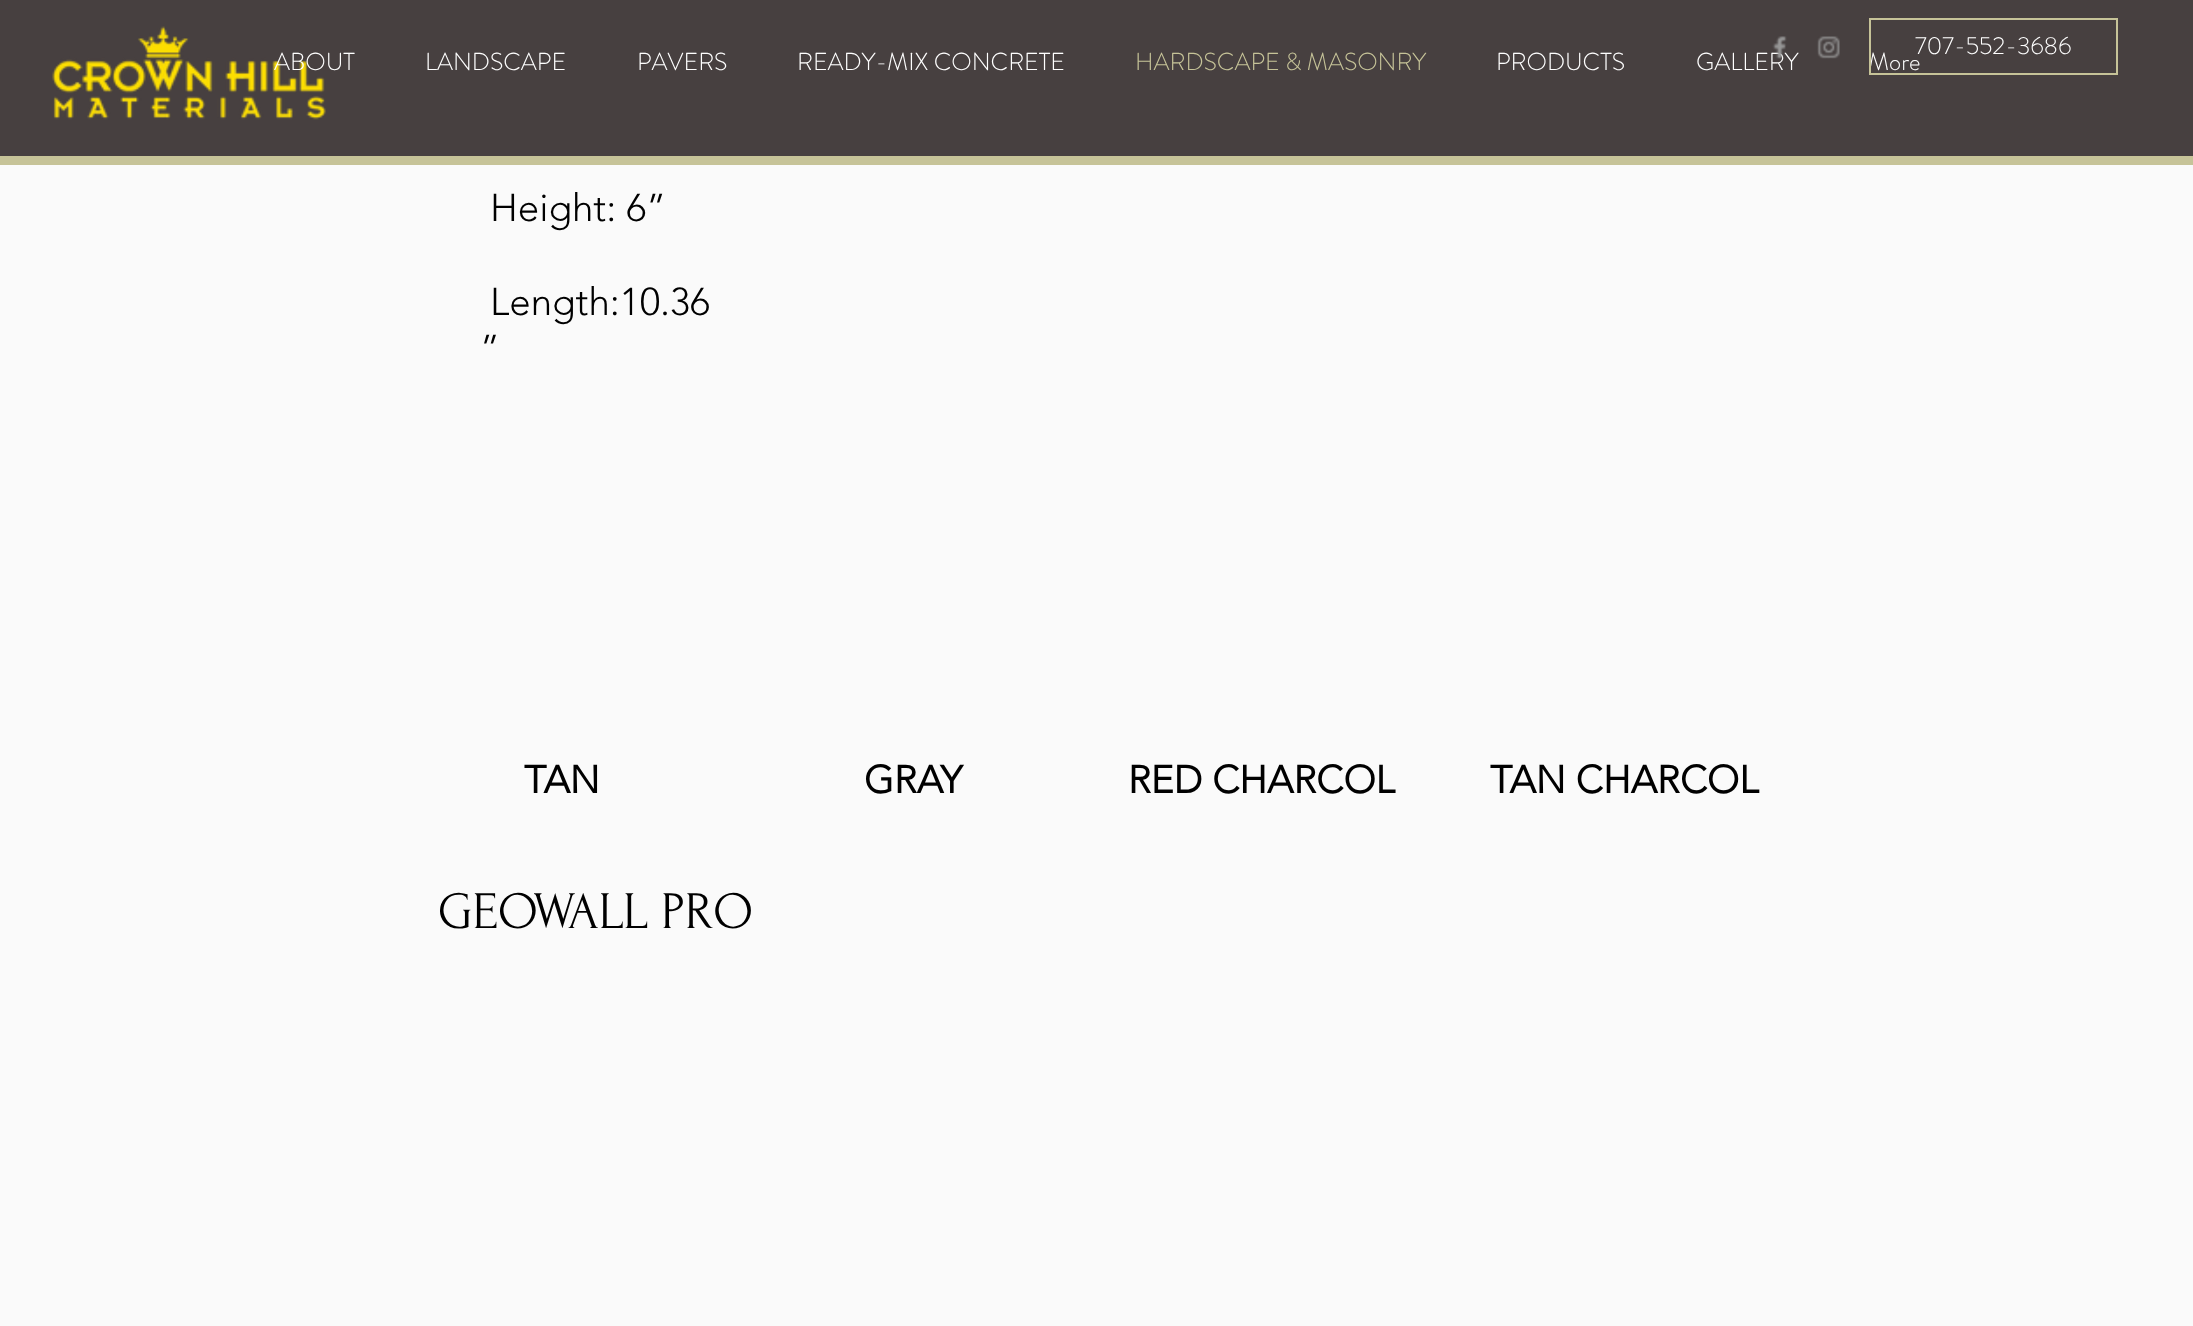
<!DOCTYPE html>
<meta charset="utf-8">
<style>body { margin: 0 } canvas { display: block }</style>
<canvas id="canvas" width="2193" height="1326"></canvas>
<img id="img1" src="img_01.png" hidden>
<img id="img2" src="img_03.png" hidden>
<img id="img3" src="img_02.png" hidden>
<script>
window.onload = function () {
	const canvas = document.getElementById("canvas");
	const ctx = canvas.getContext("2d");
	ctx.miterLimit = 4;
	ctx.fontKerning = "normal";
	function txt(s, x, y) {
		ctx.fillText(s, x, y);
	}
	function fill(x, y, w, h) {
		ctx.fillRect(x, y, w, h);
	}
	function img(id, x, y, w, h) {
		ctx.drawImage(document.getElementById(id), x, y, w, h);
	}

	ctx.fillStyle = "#FAFAFA";
	fill(0, 0, 2193, 1326);
	ctx.fillStyle = "rgba(51, 43, 43, 0.9)";
	fill(0, 0, 2193, 156);
	ctx.fillStyle = "#C6C398";
	fill(0, 156, 2193, 9);
	img("img1", 52, 26, 274, 94);
	img("img2", 1817, 36, 23, 23);
	ctx.font = "300 24.5px 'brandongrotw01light'";
	ctx.fillStyle = "#FFFFFF";
	txt("ABOUT", 274, 70);
	txt("LANDSCAPE", 425, 70);
	txt("PAVERS", 637, 70);
	txt("READY-MIX CONCRETE", 797, 70);
	ctx.fillStyle = "#C6C398";
	txt("HARDSCAPE & MASONRY", 1135, 70);
	ctx.fillStyle = "#FFFFFF";
	txt("PRODUCTS", 1496, 70);
	txt("GALLERY", 1696, 70);
	img("img3", 1772, 36, 15, 23);
	txt("More", 1868, 70);
	ctx.strokeStyle = "#C6C398";
	ctx.lineWidth = 2;
	ctx.strokeRect(1870, 19, 247, 55);
	txt("707-552-3686", 1915, 54);
	ctx.font = "300 38.5px 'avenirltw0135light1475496'";
	ctx.fillStyle = "#000000";
	txt("Height: 6”", 490, 221);
	txt("Length:10.36", 490, 315);
	txt("”", 480, 362);
	ctx.font = "bold 38.5px 'avenirltw0135light1475496'";
	txt("TAN", 524, 793);
	txt("GRAY", 864, 793);
	txt("RED CHARCOL", 1128, 793);
	txt("TAN CHARCOL", 1490, 793);
	ctx.font = "52.5px Forum";
	txt("GEOWALL PRO", 438, 928);
};
</script>
